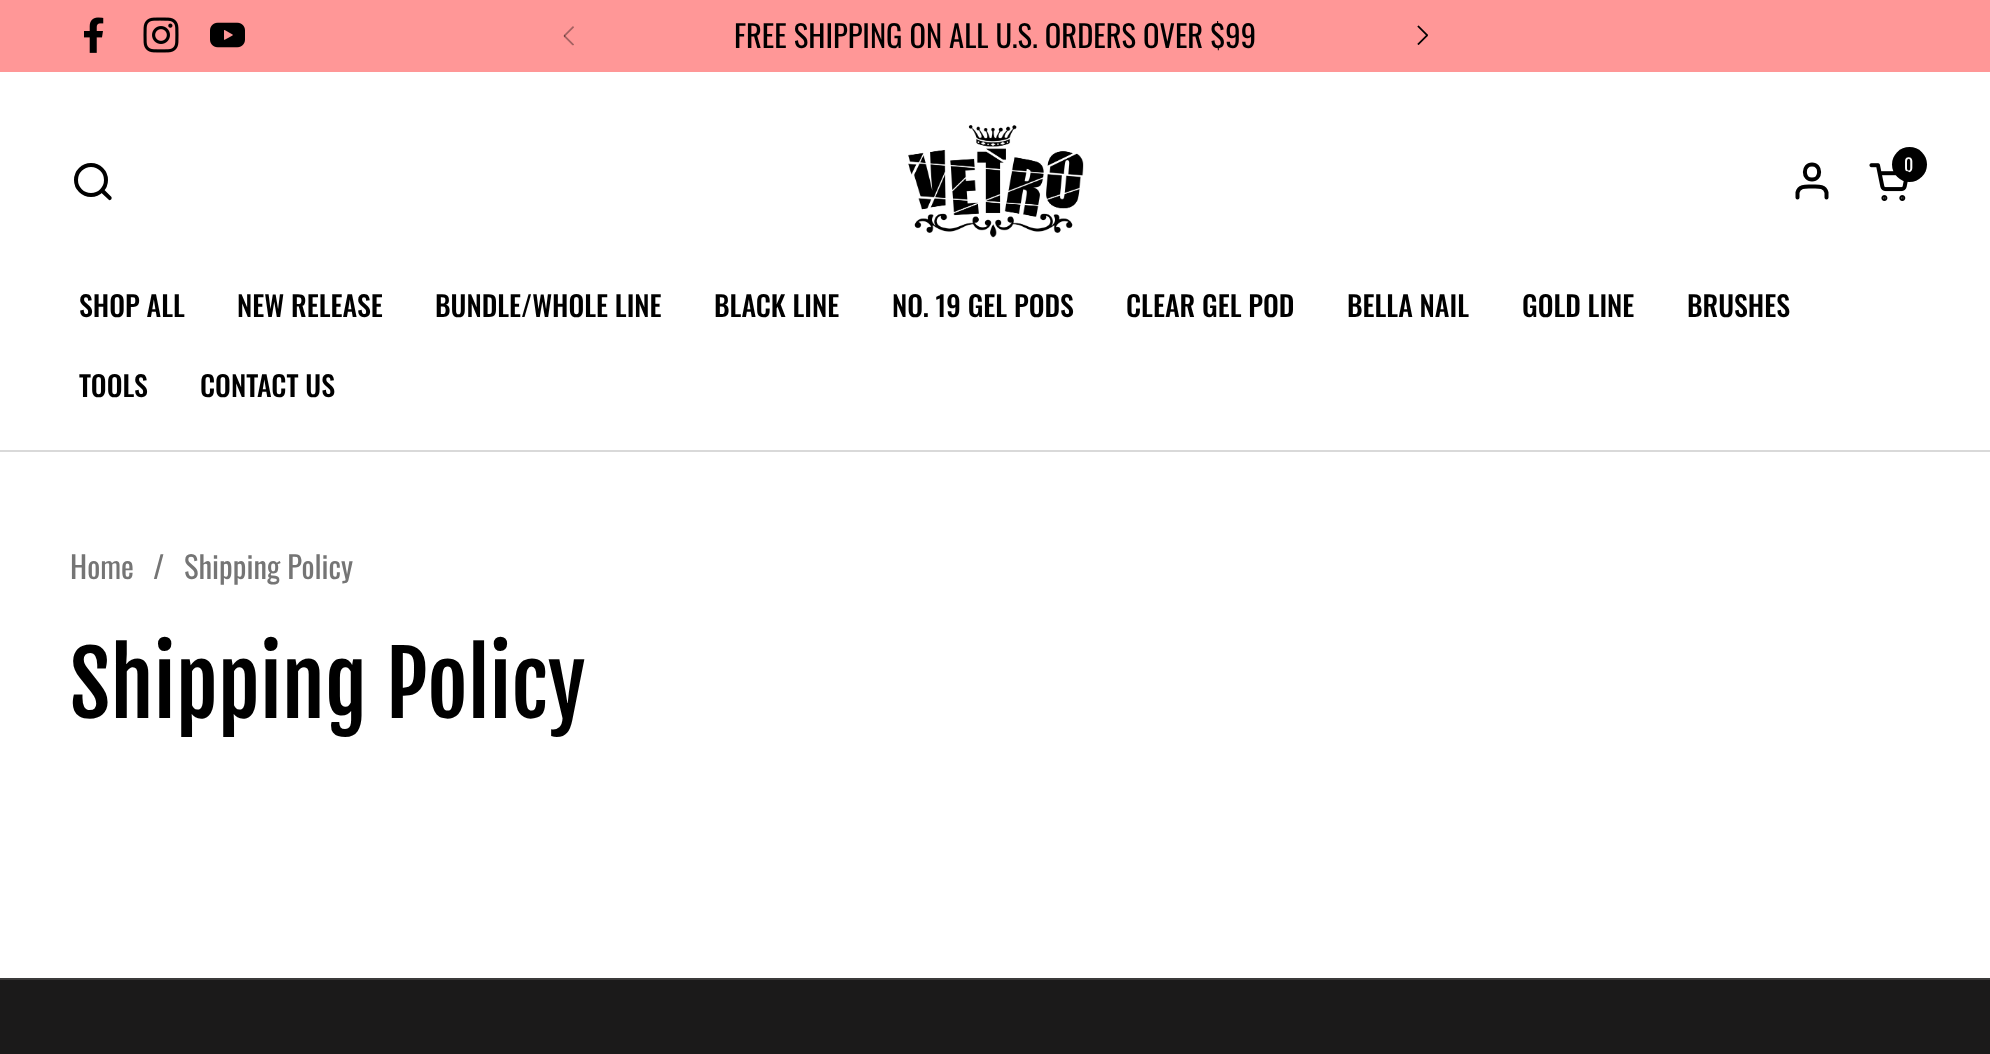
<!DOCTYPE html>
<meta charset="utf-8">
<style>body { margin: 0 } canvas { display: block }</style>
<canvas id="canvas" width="1990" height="1054"></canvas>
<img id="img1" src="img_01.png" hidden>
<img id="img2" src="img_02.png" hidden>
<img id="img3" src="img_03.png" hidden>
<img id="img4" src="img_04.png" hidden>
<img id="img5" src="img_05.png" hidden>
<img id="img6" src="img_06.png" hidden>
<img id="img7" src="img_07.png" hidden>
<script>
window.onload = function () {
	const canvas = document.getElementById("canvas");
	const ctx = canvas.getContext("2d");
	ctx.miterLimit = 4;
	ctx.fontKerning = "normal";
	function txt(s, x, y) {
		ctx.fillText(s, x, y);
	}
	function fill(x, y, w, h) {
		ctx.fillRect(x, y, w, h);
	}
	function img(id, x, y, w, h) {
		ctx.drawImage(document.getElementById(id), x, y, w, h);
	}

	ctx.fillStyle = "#FFFFFF";
	fill(0, 0, 1990, 1054);
	ctx.fillStyle = "#FF9797";
	fill(0, 0, 1990, 72);
	img("img1", 84, 17, 20, 36);
	img("img2", 143, 17, 36, 36);
	img("img3", 210, 22, 35, 26);
	img("img4", 563, 26, 11, 20);
	img("img5", 1417, 25, 11, 20);
	ctx.beginPath();
	ctx.arc(91, 180, 15, 0, Math.PI * 2);
	ctx.strokeStyle = "#000000";
	ctx.lineWidth = 4;
	ctx.stroke();
	ctx.fillStyle = "#000000";
	ctx.beginPath();
	ctx.moveTo(104, 189.5);
	ctx.lineTo(102.5, 188.5);
	ctx.lineTo(100, 191);
	ctx.lineTo(101, 192.5);
	ctx.closePath();
	ctx.moveTo(108.5, 199.5);
	ctx.bezierCurveTo(110, 201.5, 113, 198.5, 111, 196.5);
	ctx.closePath();
	ctx.moveTo(101, 192.5);
	ctx.lineTo(108.5, 199.5);
	ctx.lineTo(111, 196.5);
	ctx.lineTo(104, 189.5);
	ctx.closePath();
	ctx.fill();
	img("img6", 908, 125, 176, 113);
	ctx.beginPath();
	ctx.moveTo(1826.5, 197.5);
	ctx.lineTo(1826.5, 192.5);
	ctx.bezierCurveTo(1825, 185.5, 1817.5, 186.5, 1812, 186.5);
	ctx.bezierCurveTo(1806.5, 186.5, 1799, 185.5, 1797.5, 192.5);
	ctx.lineTo(1797.5, 197.5);
	ctx.moveTo(1812, 179.5);
	ctx.bezierCurveTo(1821.5, 179.5, 1821.5, 164.5, 1812, 164.5);
	ctx.bezierCurveTo(1802.5, 164.5, 1802.5, 179.5, 1812, 179.5);
	ctx.closePath();
	ctx.lineCap = "round";
	ctx.lineJoin = "round";
	ctx.stroke();
	ctx.beginPath();
	ctx.arc(1909.5, 164.5, 17.5, 0, Math.PI * 2);
	ctx.fill();
	ctx.fillStyle = "#D9D9D9";
	fill(0, 450, 1990, 2);
	ctx.fillStyle = "#1B1A1A";
	fill(0, 980, 1990, 74);
	ctx.fillStyle = "#3B3A3A";
	fill(0, 978, 1990, 2);
	ctx.font = "30.6px Oswald";
	ctx.fillStyle = "#000000";
	txt("FREE SHIPPING ON ALL U.S. ORDERS OVER $99", 734, 48);
	ctx.font = "18px Oswald";
	ctx.fillStyle = "#FFFFFF";
	txt("0", 1904, 172);
	img("img7", 1869, 163, 40, 38);
	ctx.font = "500 28px Oswald";
	ctx.fillStyle = "#000000";
	txt("SHOP ALL", 79, 317);
	txt("NEW RELEASE", 237, 317);
	txt("BUNDLE/WHOLE LINE", 435, 317);
	txt("BLACK LINE", 714, 317);
	txt("NO. 19 GEL PODS", 892, 317);
	txt("CLEAR GEL POD", 1126, 317);
	txt("BELLA NAIL", 1347, 317);
	txt("GOLD LINE", 1522, 317);
	txt("BRUSHES", 1687, 317);
	txt("TOOLS", 79, 397);
	txt("CONTACT US", 200, 397);
	ctx.font = "30.6px Oswald";
	ctx.fillStyle = "#757575";
	txt("Home", 70, 579);
	txt("/", 153, 579);
	txt("Shipping Policy", 184, 579);
	ctx.font = "87.5px Fjalla One";
	ctx.fillStyle = "#000000";
	txt("Shipping Policy", 70, 718);
};
</script>
